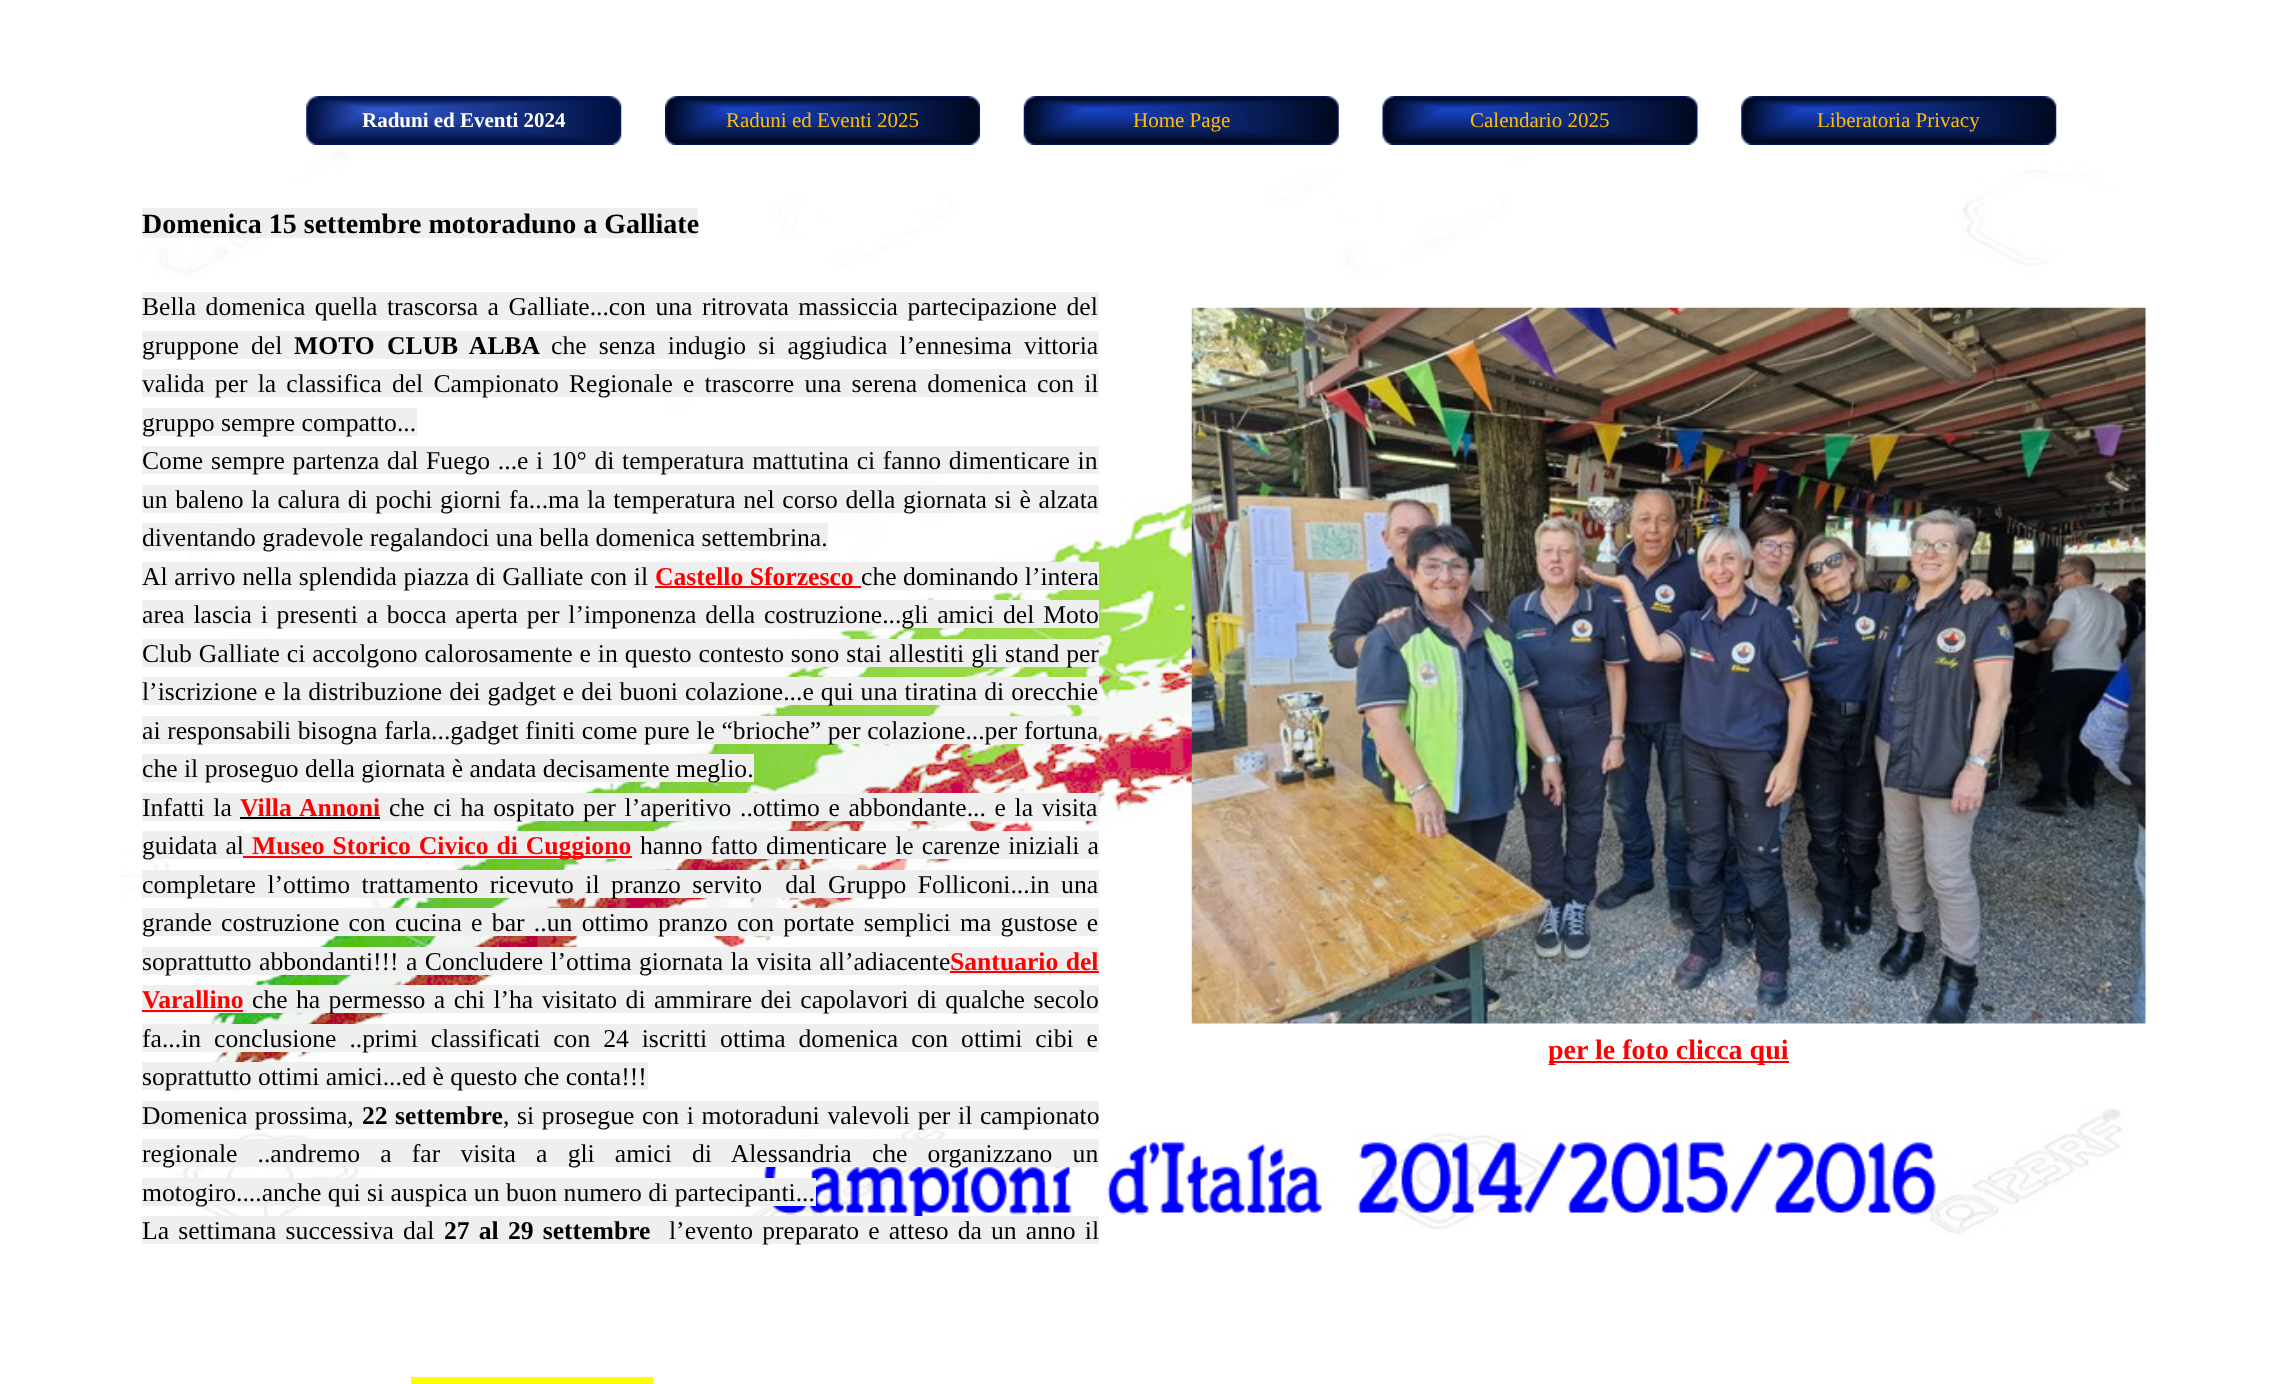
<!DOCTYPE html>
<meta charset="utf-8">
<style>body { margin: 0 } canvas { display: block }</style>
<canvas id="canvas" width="2296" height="1384"></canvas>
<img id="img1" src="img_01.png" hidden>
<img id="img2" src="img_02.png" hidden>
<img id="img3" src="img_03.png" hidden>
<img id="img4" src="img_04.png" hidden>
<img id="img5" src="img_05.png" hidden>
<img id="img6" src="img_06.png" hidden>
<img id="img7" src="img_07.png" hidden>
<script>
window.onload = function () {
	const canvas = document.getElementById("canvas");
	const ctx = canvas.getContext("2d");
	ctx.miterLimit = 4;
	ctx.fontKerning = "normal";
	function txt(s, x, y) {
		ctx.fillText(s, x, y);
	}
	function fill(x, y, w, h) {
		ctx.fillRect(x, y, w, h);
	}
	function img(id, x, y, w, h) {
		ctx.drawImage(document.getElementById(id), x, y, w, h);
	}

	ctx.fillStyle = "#FFFFFF";
	fill(0, 0, 2296, 1384);
	img("img1", 121, 151, 2019, 1089);
	img("img2", 306, 96, 316, 49);
	img("img3", 665, 96, 315, 49);
	img("img4", 1023, 96, 316, 49);
	img("img5", 1382, 96, 316, 49);
	img("img6", 1741, 96, 316, 49);
	ctx.fillStyle = "#EFEFEF";
	fill(142, 208, 556, 30);
	fill(142, 292, 957, 28);
	fill(142, 331, 957, 28);
	fill(142, 369, 957, 28);
	fill(142, 408, 275, 28);
	fill(142, 446, 957, 28);
	fill(142, 485, 957, 28);
	fill(142, 523, 686, 28);
	fill(142, 562, 957, 28);
	ctx.fillStyle = "#FF0000";
	fill(655, 586, 206, 2);
	ctx.fillStyle = "#EFEFEF";
	fill(142, 600, 957, 28);
	fill(142, 639, 957, 28);
	fill(142, 677, 957, 28);
	fill(142, 716, 957, 28);
	fill(142, 754, 612, 28);
	fill(142, 793, 957, 28);
	ctx.fillStyle = "#000000";
	fill(240, 817, 140, 2);
	ctx.fillStyle = "#EFEFEF";
	fill(142, 831, 101, 28);
	fill(243, 833, 9, 26);
	fill(252, 831, 847, 28);
	fill(142, 870, 957, 28);
	fill(142, 908, 957, 28);
	fill(142, 947, 957, 28);
	ctx.fillStyle = "#FF0000";
	fill(950, 971, 149, 2);
	ctx.fillStyle = "#EFEFEF";
	fill(142, 985, 957, 28);
	ctx.fillStyle = "#FF0000";
	fill(142, 1010, 101, 2);
	ctx.fillStyle = "#EFEFEF";
	fill(142, 1024, 957, 28);
	fill(142, 1062, 506, 28);
	fill(142, 1101, 957, 28);
	fill(142, 1139, 957, 28);
	fill(142, 1178, 674, 28);
	fill(142, 1216, 957, 28);
	img("img7", 1191, 307, 955, 717);
	ctx.fillStyle = "#FF0000";
	fill(1549, 1061, 240, 2);
	ctx.fillStyle = "#FFFF00";
	fill(411, 1377, 242, 7);
	ctx.font = "bold 21px Liberation Serif";
	ctx.fillStyle = "#FFFFFF";
	txt("Raduni ed Eventi 2024", 362, 127);
	ctx.font = "21px Liberation Serif";
	ctx.fillStyle = "#FFBF00";
	txt("Raduni ed Eventi 2025", 726, 127);
	txt("Home Page", 1133, 127);
	txt("Calendario 2025", 1470, 127);
	txt("Liberatoria Privacy", 1817, 127);
	ctx.font = "bold 28px Liberation Serif";
	ctx.fillStyle = "#000000";
	txt("Domenica 15 settembre motoraduno a Galliate", 142, 233);
	ctx.wordSpacing = "3.1px";
	ctx.font = "25.65px Liberation Serif";
	txt("Bella domenica quella trascorsa a Galliate...con una ritrovata massiccia partecipazione del", 142, 315);
	ctx.wordSpacing = "5.75px";
	txt("gruppone del", 142, 354);
	ctx.font = "bold 25.65px Liberation Serif";
	txt("MOTO CLUB ALBA", 294, 354);
	ctx.font = "25.65px Liberation Serif";
	txt("che senza indugio si aggiudica l’ennesima vittoria", 551, 354);
	ctx.wordSpacing = "3.75px";
	txt("valida per la classifica del Campionato Regionale e trascorre una serena domenica con il", 142, 392);
	ctx.wordSpacing = "0px";
	txt("gruppo sempre compatto...", 142, 431);
	ctx.wordSpacing = "1.25px";
	txt("Come sempre partenza dal Fuego ...e i 10° di temperatura mattutina ci fanno dimenticare in", 142, 469);
	txt("un baleno la calura di pochi giorni fa...ma la temperatura nel corso della giornata si è alzata", 142, 508);
	ctx.wordSpacing = "0px";
	txt("diventando gradevole regalandoci una bella domenica settembrina.", 142, 546);
	ctx.wordSpacing = "0.25px";
	txt("Al arrivo nella splendida piazza di Galliate con il", 142, 585);
	ctx.wordSpacing = "0px";
	ctx.font = "bold 25.65px Liberation Serif";
	ctx.fillStyle = "#FF0000";
	txt("Castello Sforzesco", 655, 585);
	ctx.font = "25.65px Liberation Serif";
	ctx.fillStyle = "#000000";
	txt("che dominando l’intera", 861, 585);
	ctx.wordSpacing = "2.4px";
	txt("area lascia i presenti a bocca aperta per l’imponenza della costruzione...gli amici del Moto", 142, 623);
	ctx.wordSpacing = "0.5px";
	txt("Club Galliate ci accolgono calorosamente e in questo contesto sono stai allestiti gli stand per", 142, 662);
	ctx.wordSpacing = "0.6px";
	txt("l’iscrizione e la distribuzione dei gadget e dei buoni colazione...e qui una tiratina di orecchie", 142, 700);
	ctx.wordSpacing = "0.25px";
	txt("ai responsabili bisogna farla...gadget finiti come pure le “brioche” per colazione...per fortuna", 142, 739);
	ctx.wordSpacing = "0px";
	txt("che il proseguo della giornata è andata decisamente meglio.", 142, 777);
	ctx.wordSpacing = "2.25px";
	txt("Infatti la", 142, 816);
	ctx.font = "bold 25.65px Liberation Serif";
	ctx.fillStyle = "#FF0000";
	txt("Villa Annoni", 240, 816);
	ctx.font = "25.65px Liberation Serif";
	ctx.fillStyle = "#000000";
	txt("che ci ha ospitato per l’aperitivo ..ottimo e abbondante... e la visita", 389, 816);
	ctx.wordSpacing = "1.5px";
	txt("guidata al", 142, 854);
	ctx.fillStyle = "#FF0000";
	fill(243, 856, 389, 2);
	ctx.font = "bold 25.65px Liberation Serif";
	txt("Museo Storico Civico di Cuggiono", 252, 854);
	ctx.wordSpacing = "1.75px";
	ctx.font = "25.65px Liberation Serif";
	ctx.fillStyle = "#000000";
	txt("hanno fatto dimenticare le carenze iniziali a", 640, 854);
	ctx.wordSpacing = "5.1px";
	txt("completare l’ottimo trattamento ricevuto il pranzo servito  dal Gruppo Folliconi...in una", 142, 893);
	ctx.wordSpacing = "2.9px";
	txt("grande costruzione con cucina e bar ..un ottimo pranzo con portate semplici ma gustose e", 142, 931);
	ctx.wordSpacing = "1px";
	txt("soprattutto abbondanti!!! a Concludere l’ottima giornata la visita all’adiacente", 142, 970);
	ctx.font = "bold 25.65px Liberation Serif";
	ctx.fillStyle = "#FF0000";
	txt("Santuario del", 950, 970);
	ctx.wordSpacing = "0px";
	txt("Varallino", 142, 1008);
	ctx.wordSpacing = "2px";
	ctx.font = "25.65px Liberation Serif";
	ctx.fillStyle = "#000000";
	txt("che ha permesso a chi l’ha visitato di ammirare dei capolavori di qualche secolo", 252, 1008);
	ctx.wordSpacing = "6.5px";
	txt("fa...in conclusione ..primi classificati con 24 iscritti ottima domenica con ottimi cibi e", 142, 1047);
	ctx.wordSpacing = "0px";
	txt("soprattutto ottimi amici...ed è questo che conta!!!", 142, 1085);
	ctx.wordSpacing = "1px";
	txt("Domenica prossima,", 142, 1124);
	ctx.font = "bold 25.65px Liberation Serif";
	txt("22 settembre", 362, 1124);
	ctx.wordSpacing = "1.25px";
	ctx.font = "25.65px Liberation Serif";
	txt(", si prosegue con i motoraduni valevoli per il campionato", 503, 1124);
	ctx.wordSpacing = "13.75px";
	txt("regionale ..andremo a far visita a gli amici di Alessandria che organizzano un", 142, 1162);
	ctx.wordSpacing = "0px";
	txt("motogiro....anche qui si auspica un buon numero di partecipanti...", 142, 1201);
	ctx.wordSpacing = "2.75px";
	txt("La settimana successiva dal", 142, 1239);
	ctx.font = "bold 25.65px Liberation Serif";
	txt("27 al 29 settembre", 444, 1239);
	ctx.font = "25.65px Liberation Serif";
	txt("l’evento preparato e atteso da un anno il", 669, 1239);
	ctx.wordSpacing = "0px";
	ctx.font = "bold 28px Liberation Serif";
	ctx.fillStyle = "#FF0000";
	txt("per le foto clicca qui", 1548, 1059);
};
</script>
